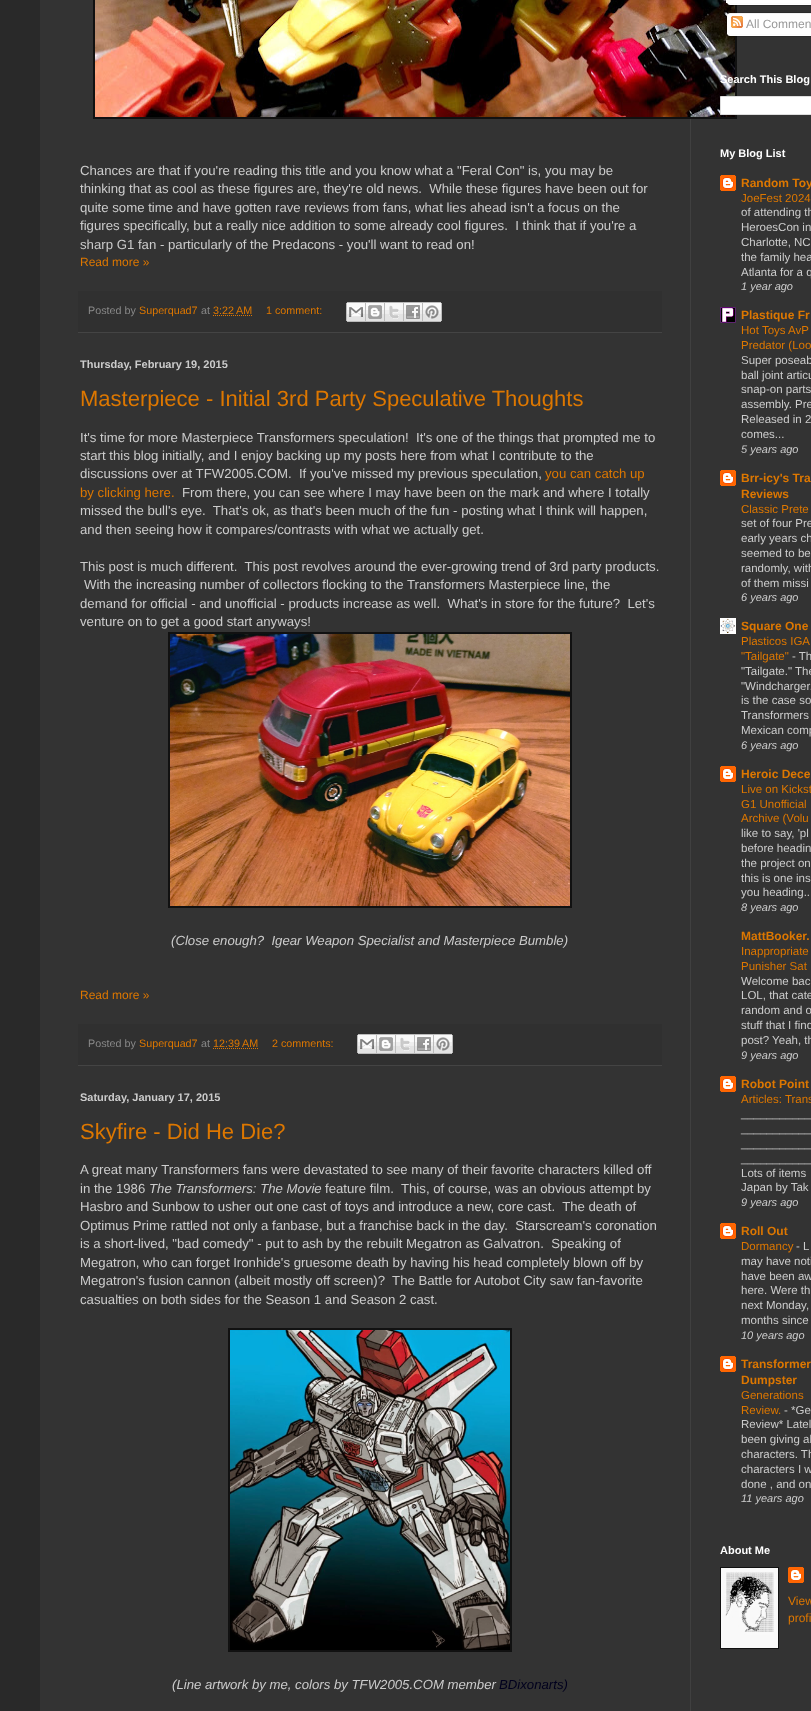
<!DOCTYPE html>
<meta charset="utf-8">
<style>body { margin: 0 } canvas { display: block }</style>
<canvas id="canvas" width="811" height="1711"></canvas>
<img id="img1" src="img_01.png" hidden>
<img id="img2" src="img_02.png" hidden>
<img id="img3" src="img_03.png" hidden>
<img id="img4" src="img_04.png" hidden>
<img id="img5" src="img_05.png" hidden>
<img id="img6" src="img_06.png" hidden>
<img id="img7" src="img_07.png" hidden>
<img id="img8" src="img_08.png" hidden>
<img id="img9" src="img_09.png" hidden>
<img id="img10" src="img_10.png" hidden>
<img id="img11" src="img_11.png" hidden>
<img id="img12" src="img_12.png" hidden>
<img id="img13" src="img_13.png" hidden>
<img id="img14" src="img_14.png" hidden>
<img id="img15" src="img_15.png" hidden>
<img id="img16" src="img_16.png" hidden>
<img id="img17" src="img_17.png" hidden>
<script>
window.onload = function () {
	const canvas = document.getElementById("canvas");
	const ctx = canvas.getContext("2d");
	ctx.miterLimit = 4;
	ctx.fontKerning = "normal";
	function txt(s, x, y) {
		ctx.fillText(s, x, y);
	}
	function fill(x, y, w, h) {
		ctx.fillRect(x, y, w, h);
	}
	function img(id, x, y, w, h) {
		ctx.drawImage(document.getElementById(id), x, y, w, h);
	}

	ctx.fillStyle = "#292929";
	fill(0, 0, 811, 1711);
	ctx.fillStyle = "#333333";
	fill(40, 0, 771, 1711);
	ctx.fillStyle = "#111111";
	fill(93, 0, 644, 119);
	img("img1", 95, 0, 640, 117);
	ctx.fillStyle = "#303030";
	fill(78, 291, 584, 41);
	ctx.fillStyle = "#444444";
	fill(78, 332, 584, 1);
	ctx.beginPath();
	ctx.moveTo(213, 315.5);
	ctx.lineTo(252.5, 315.5);
	ctx.strokeStyle = "#DD7700";
	ctx.setLineDash([1, 1]);
	ctx.stroke();
	img("img2", 346, 302, 20, 20);
	img("img3", 366, 302, 19, 20);
	img("img4", 385, 302, 19, 20);
	img("img5", 404, 302, 19, 20);
	img("img6", 423, 302, 19, 20);
	ctx.fillStyle = "#111111";
	fill(168, 632, 404, 276);
	img("img7", 170, 634, 400, 272);
	ctx.fillStyle = "#303030";
	fill(78, 1024, 584, 41);
	ctx.fillStyle = "#444444";
	fill(78, 1065, 584, 1);
	ctx.beginPath();
	ctx.moveTo(213, 1048.5);
	ctx.lineTo(258.5, 1048.5);
	ctx.stroke();
	img("img2", 357, 1034, 20, 20);
	img("img3", 377, 1034, 19, 20);
	img("img4", 396, 1034, 19, 20);
	img("img5", 415, 1034, 19, 20);
	img("img6", 434, 1034, 19, 20);
	ctx.fillStyle = "#111111";
	fill(228, 1328, 284, 324);
	img("img8", 230, 1330, 280, 320);
	ctx.fillStyle = "#FFFFFF";
	fill(726, 0, 85, 3);
	img("img9", 727, 3, 84, 3);
	img("img10", 726, 12, 85, 22);
	img("img11", 731, 16, 12, 12);
	img("img12", 727, 34, 84, 3);
	ctx.beginPath();
	ctx.rect(720.5, 96.5, 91, 18);
	ctx.fill();
	ctx.strokeStyle = "#DDDDDD";
	ctx.setLineDash([]);
	ctx.stroke();
	img("img13", 720, 175, 16, 16);
	img("img14", 720, 307, 16, 16);
	img("img13", 720, 470, 16, 16);
	img("img15", 720, 618, 16, 16);
	img("img13", 720, 766, 16, 16);
	img("img13", 720, 1076, 16, 16);
	img("img13", 720, 1223, 16, 16);
	img("img13", 720, 1356, 16, 16);
	ctx.fillStyle = "#111111";
	fill(720, 1567, 59, 82);
	img("img16", 721, 1568, 57, 80);
	img("img17", 788, 1567, 16, 16);
	ctx.fillStyle = "#404040";
	fill(690, 119, 1, 1592);
	ctx.font = "13.2px Liberation Sans";
	ctx.fillStyle = "#CCCCCC";
	txt("Chances are that if you're reading this title and you know what a \"Feral Con\" is, you may be", 80, 175);
	txt("thinking that as cool as these figures are, they're old news.  While these figures have been out for", 80, 193);
	txt("quite some time and have gotten rave reviews from fans, what lies ahead isn't a focus on the", 80, 212);
	txt("figures specifically, but a really nice addition to some already cool figures.  I think that if you're a", 80, 230);
	txt("sharp G1 fan - particularly of the Predacons - you'll want to read on!", 80, 249);
	ctx.font = "12px Liberation Sans";
	ctx.fillStyle = "#DD7700";
	txt("Read more »", 80, 266);
	ctx.font = "10.75px Liberation Sans";
	ctx.fillStyle = "#888888";
	txt("Posted by", 88, 314);
	ctx.fillStyle = "#DD7700";
	txt("Superquad7", 139, 314);
	ctx.fillStyle = "#888888";
	txt("at", 201, 314);
	ctx.fillStyle = "#DD7700";
	txt("3:22 AM", 213, 314);
	txt("1 comment:", 266, 314);
	ctx.font = "bold 11px Liberation Sans";
	ctx.fillStyle = "#CCCCCC";
	txt("Thursday, February 19, 2015", 80, 368);
	ctx.font = "22px Liberation Sans";
	ctx.fillStyle = "#DD7700";
	txt("Masterpiece - Initial 3rd Party Speculative Thoughts", 80, 406);
	ctx.font = "13.2px Liberation Sans";
	ctx.fillStyle = "#CCCCCC";
	txt("It's time for more Masterpiece Transformers speculation!  It's one of the things that prompted me to", 80, 442);
	txt("start this blog initially, and I enjoy backing up my posts here from what I contribute to the", 80, 460);
	txt("discussions over at TFW2005.COM.  If you've missed my previous speculation,", 80, 478);
	ctx.fillStyle = "#DD7700";
	txt("you can catch up", 545, 478);
	txt("by clicking here.", 80, 497);
	ctx.fillStyle = "#CCCCCC";
	txt("From there, you can see where I may have been on the mark and where I totally", 182, 497);
	txt("missed the bull's eye.  That's ok, as that's been much of the fun - posting what I think will happen,", 80, 515);
	txt("and then seeing how it compares/contrasts with what we actually get.", 80, 534);
	txt("This post is much different.  This post revolves around the ever-growing trend of 3rd party products.", 80, 571);
	txt("With the increasing number of collectors flocking to the Transformers Masterpiece line, the", 84, 589);
	txt("demand for official - and unofficial - products increase as well.  What's in store for the future?  Let's", 80, 608);
	txt("venture on to get a good start anyways!", 80, 626);
	ctx.font = "italic 13.2px Liberation Sans";
	txt("(Close enough?  Igear Weapon Specialist and Masterpiece Bumble)", 171, 945);
	ctx.font = "12px Liberation Sans";
	ctx.fillStyle = "#DD7700";
	txt("Read more »", 80, 999);
	ctx.font = "10.75px Liberation Sans";
	ctx.fillStyle = "#888888";
	txt("Posted by", 88, 1047);
	ctx.fillStyle = "#DD7700";
	txt("Superquad7", 139, 1047);
	ctx.fillStyle = "#888888";
	txt("at", 201, 1047);
	ctx.fillStyle = "#DD7700";
	txt("12:39 AM", 213, 1047);
	txt("2 comments:", 272, 1047);
	ctx.font = "bold 11px Liberation Sans";
	ctx.fillStyle = "#CCCCCC";
	txt("Saturday, January 17, 2015", 80, 1101);
	ctx.font = "22px Liberation Sans";
	ctx.fillStyle = "#DD7700";
	txt("Skyfire - Did He Die?", 80, 1139);
	ctx.font = "13.2px Liberation Sans";
	ctx.fillStyle = "#CCCCCC";
	txt("A great many Transformers fans were devastated to see many of their favorite characters killed off", 80, 1174);
	txt("in the 1986", 80, 1193);
	ctx.font = "italic 13.2px Liberation Sans";
	txt("The Transformers: The Movie", 149, 1193);
	ctx.font = "13.2px Liberation Sans";
	txt("feature film.  This, of course, was an obvious attempt by", 325, 1193);
	txt("Hasbro and Sunbow to usher out one cast of toys and introduce a new, core cast.  The death of", 80, 1211);
	txt("Optimus Prime rattled not only a fanbase, but a franchise back in the day.  Starscream's coronation", 80, 1230);
	txt("is a short-lived, \"bad comedy\" - put to ash by the rebuilt Megatron as Galvatron.  Speaking of", 80, 1248);
	txt("Megatron, who can forget Ironhide's gruesome death by having his head completely blown off by", 80, 1267);
	txt("Megatron's fusion cannon (albeit mostly off screen)?  The Battle for Autobot City saw fan-favorite", 80, 1285);
	txt("casualties on both sides for the Season 1 and Season 2 cast.", 80, 1304);
	ctx.font = "italic 13.2px Liberation Sans";
	txt("(Line artwork by me, colors by TFW2005.COM member", 172, 1689);
	ctx.fillStyle = "#00001D";
	txt("BDixonarts)", 499, 1689);
	ctx.font = "12px Liberation Sans";
	ctx.fillStyle = "#999999";
	txt("All Commen", 746, 28);
	ctx.font = "bold 11px Liberation Sans";
	ctx.fillStyle = "#FFFFFF";
	txt("Search This Blog", 720, 83);
	txt("My Blog List", 720, 157);
	ctx.font = "bold 12px Liberation Sans";
	ctx.fillStyle = "#DD7700";
	txt("Random Toy", 741, 187);
	ctx.font = "11.5px Liberation Sans";
	txt("JoeFest 2024", 741, 202);
	ctx.fillStyle = "#CCCCCC";
	txt("of attending th", 741, 216);
	txt("HeroesCon in", 741, 231);
	txt("Charlotte, NC", 741, 246);
	txt("the family hea", 741, 261);
	txt("Atlanta for a q", 741, 276);
	ctx.font = "italic 11px Liberation Sans";
	txt("1 year ago", 741, 290);
	ctx.font = "bold 12px Liberation Sans";
	ctx.fillStyle = "#DD7700";
	txt("Plastique Fr", 741, 319);
	ctx.font = "11.5px Liberation Sans";
	txt("Hot Toys AvP", 741, 334);
	txt("Predator (Loo", 741, 349);
	ctx.fillStyle = "#CCCCCC";
	txt("Super poseab", 741, 364);
	txt("ball joint articu", 741, 379);
	txt("snap-on parts", 741, 393);
	txt("assembly. Pre", 741, 408);
	txt("Released in 2", 741, 423);
	txt("comes...", 741, 438);
	ctx.font = "italic 11px Liberation Sans";
	txt("5 years ago", 741, 453);
	ctx.font = "bold 12px Liberation Sans";
	ctx.fillStyle = "#DD7700";
	txt("Brr-icy's Tra", 741, 482);
	txt("Reviews", 741, 498);
	ctx.font = "11.5px Liberation Sans";
	txt("Classic Prete", 741, 513);
	ctx.fillStyle = "#CCCCCC";
	txt("set of four Pre", 741, 527);
	txt("early years ch", 741, 542);
	txt("seemed to be", 741, 557);
	txt("randomly, with", 741, 572);
	txt("of them missi", 741, 587);
	ctx.font = "italic 11px Liberation Sans";
	txt("6 years ago", 741, 601);
	ctx.font = "bold 12px Liberation Sans";
	ctx.fillStyle = "#DD7700";
	txt("Square One", 741, 630);
	ctx.font = "11.5px Liberation Sans";
	txt("Plasticos IGA", 741, 645);
	txt("\"Tailgate\"", 741, 660);
	ctx.fillStyle = "#CCCCCC";
	txt("- Th", 792, 660);
	txt("\"Tailgate.\" The", 741, 675);
	txt("\"Windcharger.", 741, 690);
	txt("is the case so", 741, 704);
	txt("Transformers", 741, 719);
	txt("Mexican comp", 741, 734);
	ctx.font = "italic 11px Liberation Sans";
	txt("6 years ago", 741, 749);
	ctx.font = "bold 12px Liberation Sans";
	ctx.fillStyle = "#DD7700";
	txt("Heroic Dece", 741, 778);
	ctx.font = "11.5px Liberation Sans";
	txt("Live on Kickst", 741, 793);
	txt("G1 Unofficial", 741, 808);
	txt("Archive (Volu", 741, 822);
	ctx.fillStyle = "#CCCCCC";
	txt("like to say, 'pl", 741, 837);
	txt("before headin", 741, 852);
	txt("the project on", 741, 867);
	txt("this is one ins", 741, 882);
	txt("you heading..", 741, 896);
	ctx.font = "italic 11px Liberation Sans";
	txt("8 years ago", 741, 911);
	ctx.font = "bold 12px Liberation Sans";
	ctx.fillStyle = "#DD7700";
	txt("MattBooker.", 741, 940);
	ctx.font = "11.5px Liberation Sans";
	txt("Inappropriate", 741, 955);
	txt("Punisher Sat", 741, 970);
	ctx.fillStyle = "#CCCCCC";
	txt("Welcome bac", 741, 985);
	txt("LOL, that cate", 741, 999);
	txt("random and o", 741, 1014);
	txt("stuff that I find", 741, 1029);
	txt("post? Yeah, th", 741, 1044);
	ctx.font = "italic 11px Liberation Sans";
	txt("9 years ago", 741, 1059);
	ctx.font = "bold 12px Liberation Sans";
	ctx.fillStyle = "#DD7700";
	txt("Robot Point", 741, 1088);
	ctx.font = "11.5px Liberation Sans";
	txt("Articles: Trans", 741, 1103);
	ctx.fillStyle = "#CCCCCC";
	txt("___________", 741, 1117);
	txt("___________", 741, 1132);
	txt("___________", 741, 1147);
	txt("___________", 741, 1162);
	txt("Lots of items", 741, 1177);
	txt("Japan by Tak", 741, 1191);
	ctx.font = "italic 11px Liberation Sans";
	txt("9 years ago", 741, 1206);
	ctx.font = "bold 12px Liberation Sans";
	ctx.fillStyle = "#DD7700";
	txt("Roll Out", 741, 1235);
	ctx.font = "11.5px Liberation Sans";
	txt("Dormancy", 741, 1250);
	ctx.fillStyle = "#CCCCCC";
	txt("- L", 796, 1250);
	txt("may have noti", 741, 1265);
	txt("have been aw", 741, 1280);
	txt("here. Were th", 741, 1294);
	txt("next Monday,", 741, 1309);
	txt("months since", 741, 1324);
	ctx.font = "italic 11px Liberation Sans";
	txt("10 years ago", 741, 1339);
	ctx.font = "bold 12px Liberation Sans";
	ctx.fillStyle = "#DD7700";
	txt("Transformer", 741, 1368);
	txt("Dumpster", 741, 1384);
	ctx.font = "11.5px Liberation Sans";
	txt("Generations", 741, 1399);
	txt("Review.", 741, 1414);
	ctx.fillStyle = "#CCCCCC";
	txt("- *Ge", 784, 1414);
	txt("Review* Latel", 741, 1428);
	txt("been giving al", 741, 1443);
	txt("characters. Th", 741, 1458);
	txt("characters I w", 741, 1473);
	txt("done , and on", 741, 1488);
	ctx.font = "italic 11px Liberation Sans";
	txt("11 years ago", 741, 1502);
	ctx.font = "bold 11px Liberation Sans";
	ctx.fillStyle = "#FFFFFF";
	txt("About Me", 720, 1554);
	ctx.font = "12px Liberation Sans";
	ctx.fillStyle = "#DD7700";
	txt("View", 788, 1605);
	txt("profi", 788, 1622);
};
</script>
